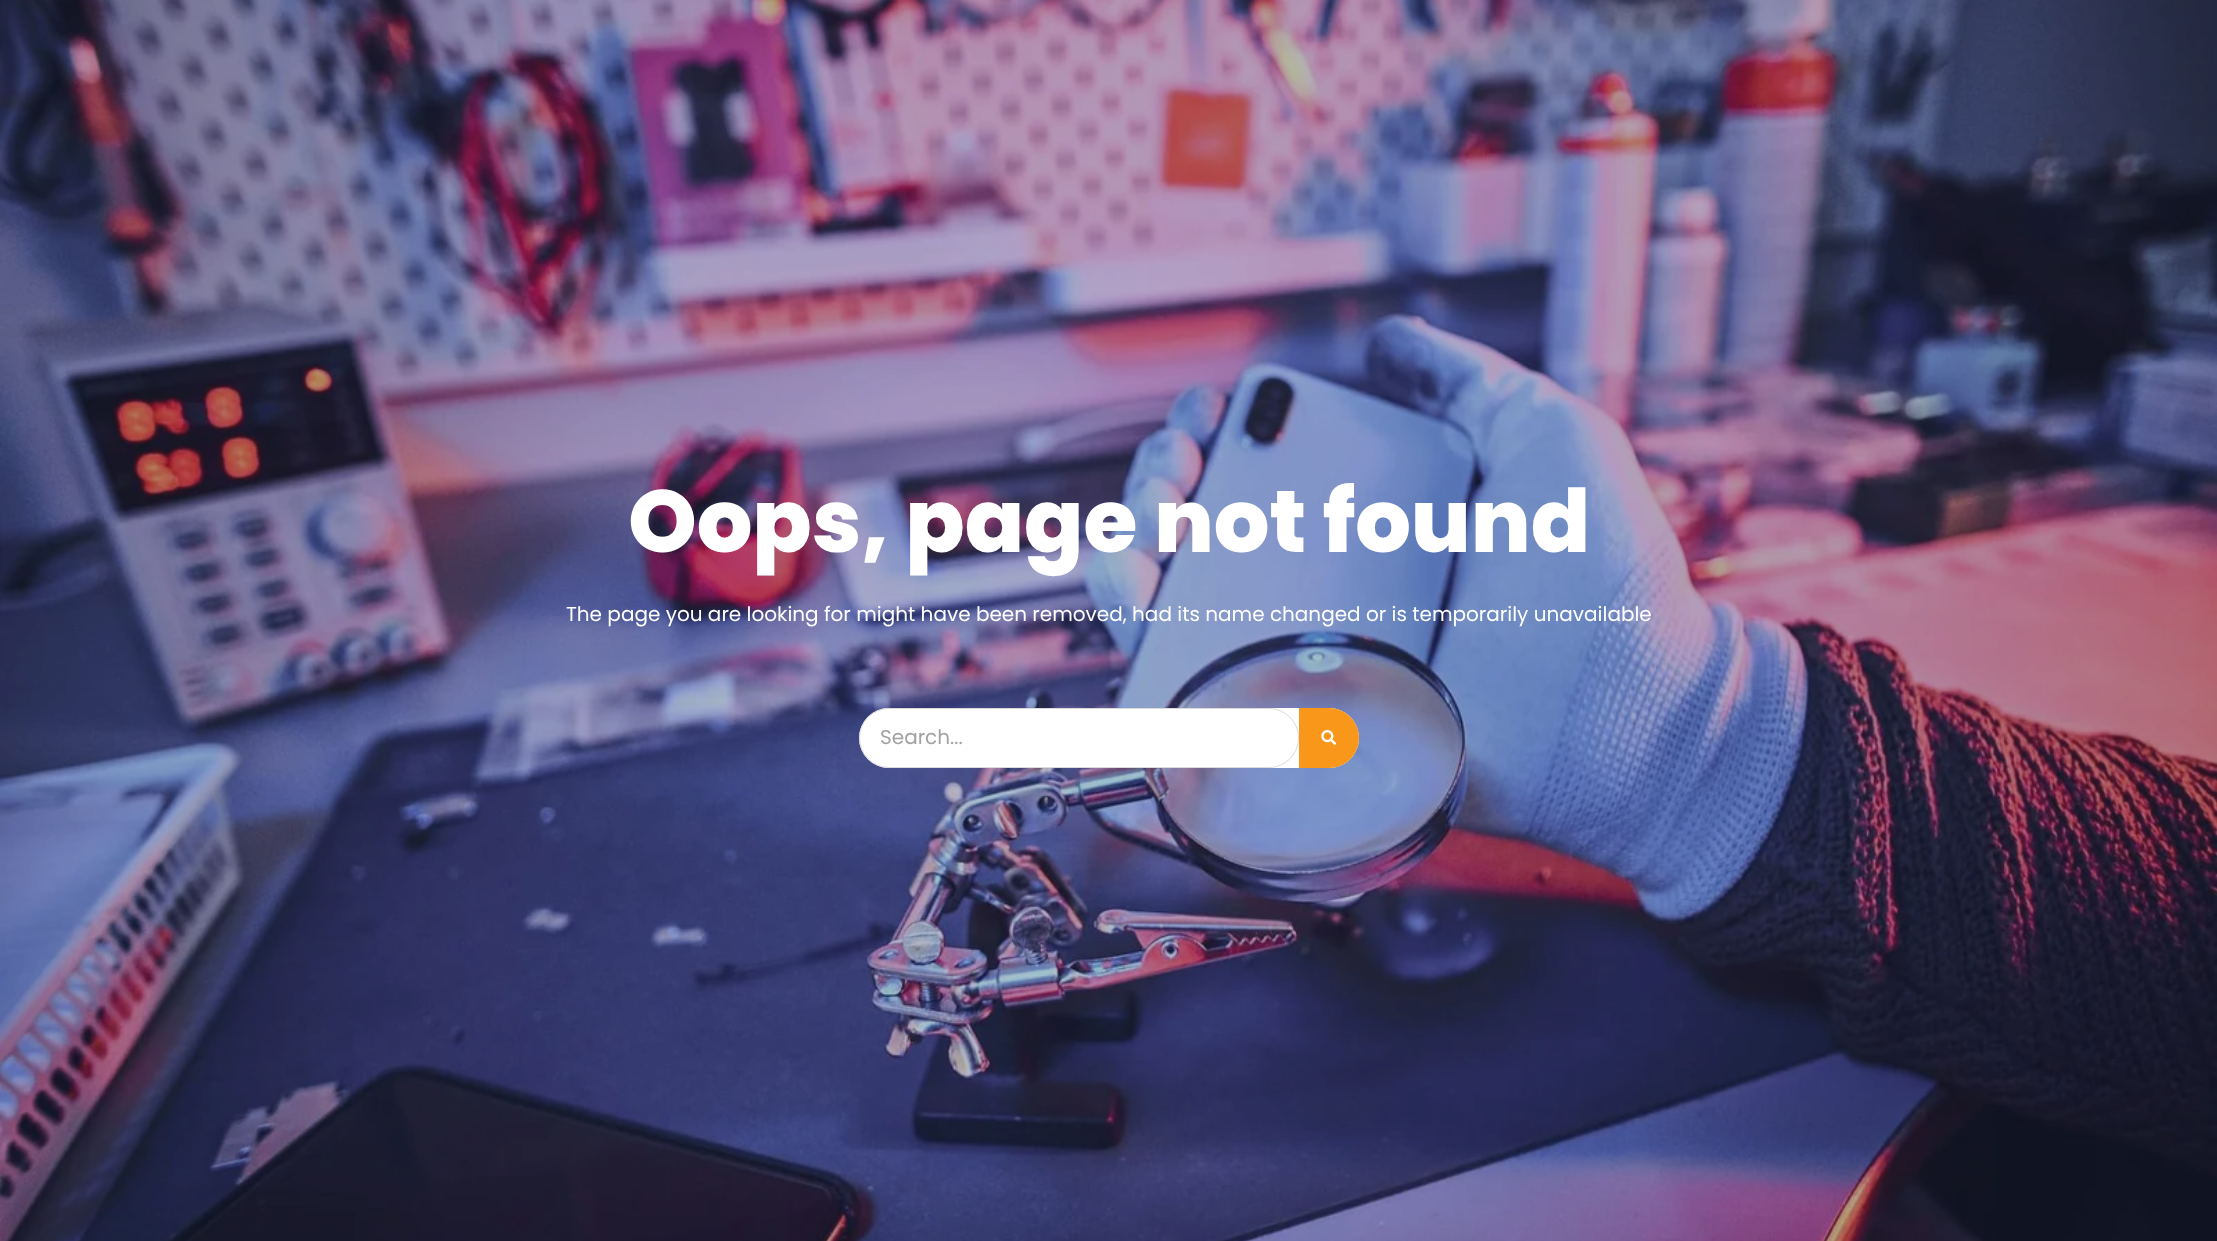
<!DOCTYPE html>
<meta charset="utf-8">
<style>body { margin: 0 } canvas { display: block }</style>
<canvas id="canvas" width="2217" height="1241"></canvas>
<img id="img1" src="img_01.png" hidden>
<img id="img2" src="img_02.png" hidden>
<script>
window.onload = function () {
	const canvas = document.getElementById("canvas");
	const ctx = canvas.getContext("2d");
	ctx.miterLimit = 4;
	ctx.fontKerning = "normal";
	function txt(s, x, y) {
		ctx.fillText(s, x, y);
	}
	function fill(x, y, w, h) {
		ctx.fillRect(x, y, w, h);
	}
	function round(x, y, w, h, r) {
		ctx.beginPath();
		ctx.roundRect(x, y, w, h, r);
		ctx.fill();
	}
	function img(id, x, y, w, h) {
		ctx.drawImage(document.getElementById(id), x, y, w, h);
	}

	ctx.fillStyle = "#FFFFFF";
	fill(0, 0, 2217, 1241);
	img("img1", 0, 0, 2217, 1241);
	round(859, 708, 500, 60, 30);
	ctx.beginPath();
	ctx.roundRect(859.5, 708.5, 439, 59, 29.5);
	ctx.strokeStyle = "#DADADD";
	ctx.stroke();
	ctx.fillStyle = "#F9971B";
	ctx.beginPath();
	ctx.roundRect(1299, 708, 60, 60, [0, 30, 30, 0]);
	ctx.fill();
	img("img2", 1321, 730, 15, 15);
	ctx.letterSpacing = "-0.1px";
	ctx.font = "800 87.5px Poppins";
	ctx.fillStyle = "#FFFFFF";
	txt("Oops, page not found", 628, 552);
	ctx.letterSpacing = "0px";
	ctx.font = "20px Poppins";
	txt("The page you are looking for might have been removed, had its name changed or is temporarily unavailable", 566, 621);
	ctx.fillStyle = "#A2A2A3";
	txt("Search...", 880, 744);
};
</script>
